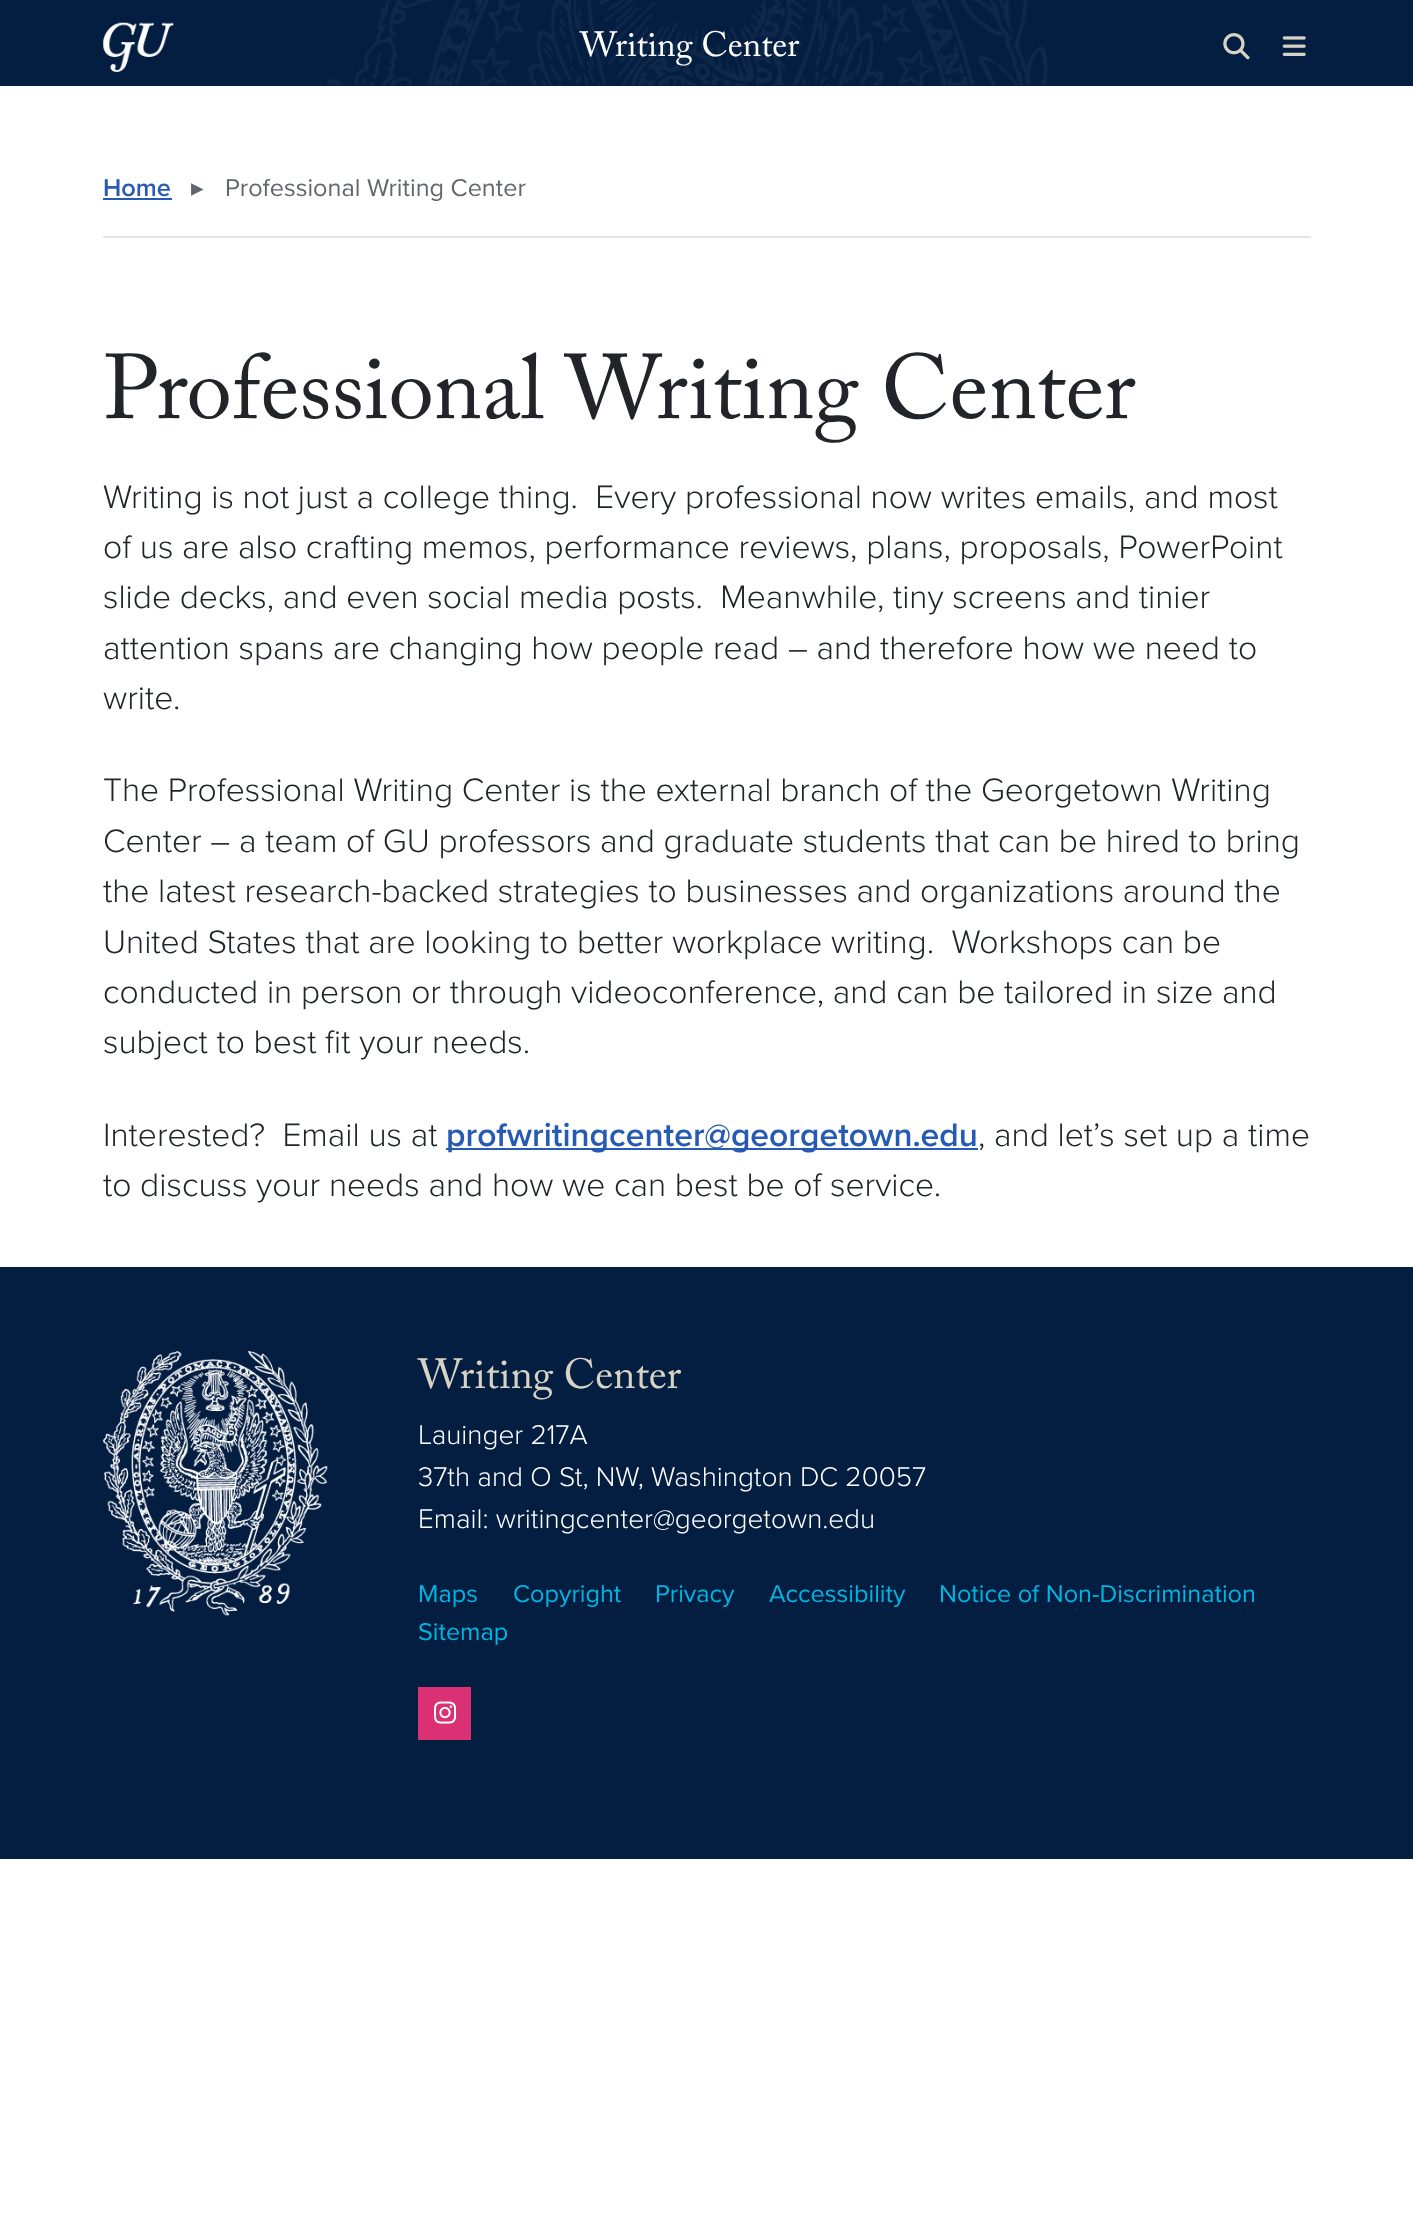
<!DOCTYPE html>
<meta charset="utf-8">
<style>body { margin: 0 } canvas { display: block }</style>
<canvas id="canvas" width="1413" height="2230"></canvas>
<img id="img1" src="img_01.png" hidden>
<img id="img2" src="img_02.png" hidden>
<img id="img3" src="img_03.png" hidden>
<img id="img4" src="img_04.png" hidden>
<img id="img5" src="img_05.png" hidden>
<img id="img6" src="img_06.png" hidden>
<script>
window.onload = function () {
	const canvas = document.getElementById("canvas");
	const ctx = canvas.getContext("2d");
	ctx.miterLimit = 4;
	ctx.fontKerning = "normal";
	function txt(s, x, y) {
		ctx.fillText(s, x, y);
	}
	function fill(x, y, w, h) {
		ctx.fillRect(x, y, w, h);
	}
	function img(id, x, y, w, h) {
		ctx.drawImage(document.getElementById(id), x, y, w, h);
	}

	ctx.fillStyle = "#FFFFFF";
	fill(0, 0, 1413, 2230);
	ctx.fillStyle = "#041E42";
	fill(0, 0, 1413, 86);
	img("img1", 327, 0, 721, 86);
	img("img2", 103, 22, 71, 50);
	img("img3", 1223, 33, 27, 27);
	img("img4", 1282, 36, 24, 20);
	ctx.fillStyle = "#E4E4E4";
	fill(103, 236, 1208, 2);
	ctx.fillStyle = "#265AB3";
	fill(103, 198, 69, 2);
	fill(446, 1148, 532, 2);
	ctx.fillStyle = "#041E42";
	fill(0, 1267, 1413, 592);
	img("img5", 103, 1351, 225, 265);
	ctx.fillStyle = "#D93174";
	fill(418, 1687, 53, 53);
	img("img6", 434, 1701, 23, 23);
	ctx.font = "35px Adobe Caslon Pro";
	ctx.fillStyle = "#FFFFFF";
	txt("Writing Center", 580, 56);
	ctx.font = "600 25.25px Proxima Nova";
	ctx.fillStyle = "#265AB3";
	txt("Home", 103, 196);
	ctx.font = "25.25px DejaVu Sans";
	ctx.fillStyle = "#63666A";
	txt("▸", 191, 196);
	ctx.font = "25.25px Proxima Nova";
	txt("Professional Writing Center", 225, 196);
	ctx.font = "91px Adobe Caslon Pro";
	ctx.fillStyle = "#212529";
	txt("Professional Writing Center", 103, 418);
	ctx.font = "300 33.6px Proxima Nova";
	txt("Writing is not just a college thing.  Every professional now writes emails, and most", 103, 508);
	txt("of us are also crafting memos, performance reviews, plans, proposals, PowerPoint", 103, 558);
	txt("slide decks, and even social media posts.  Meanwhile, tiny screens and tinier", 103, 608);
	txt("attention spans are changing how people read – and therefore how we need to", 103, 659);
	txt("write.", 103, 709);
	txt("The Professional Writing Center is the external branch of the Georgetown Writing", 103, 801);
	txt("Center – a team of GU professors and graduate students that can be hired to bring", 103, 852);
	txt("the latest research-backed strategies to businesses and organizations around the", 103, 902);
	txt("United States that are looking to better workplace writing.  Workshops can be", 103, 953);
	txt("conducted in person or through videoconference, and can be tailored in size and", 103, 1003);
	txt("subject to best fit your needs.", 103, 1053);
	txt("Interested?  Email us at", 103, 1146);
	ctx.font = "600 33.6px Proxima Nova";
	ctx.fillStyle = "#265AB3";
	txt("profwritingcenter@georgetown.edu", 446, 1146);
	ctx.font = "300 33.6px Proxima Nova";
	ctx.fillStyle = "#212529";
	txt(", and let’s set up a time", 978, 1146);
	txt("to discuss your needs and how we can best be of service.", 103, 1196);
	ctx.font = "42px Adobe Caslon Pro";
	ctx.fillStyle = "#D6D2C4";
	txt("Writing Center", 418, 1388);
	ctx.font = "300 28px Proxima Nova";
	ctx.fillStyle = "#FFFFFF";
	txt("Lauinger 217A", 418, 1444);
	txt("37th and O St, NW, Washington DC 20057", 418, 1486);
	txt("Email: writingcenter@georgetown.edu", 418, 1528);
	ctx.font = "25.25px Proxima Nova";
	ctx.fillStyle = "#00B5E2";
	txt("Maps", 418, 1602);
	txt("Copyright", 513, 1602);
	txt("Privacy", 655, 1602);
	txt("Accessibility", 769, 1602);
	txt("Notice of Non-Discrimination", 939, 1602);
	txt("Sitemap", 418, 1640);
};
</script>
